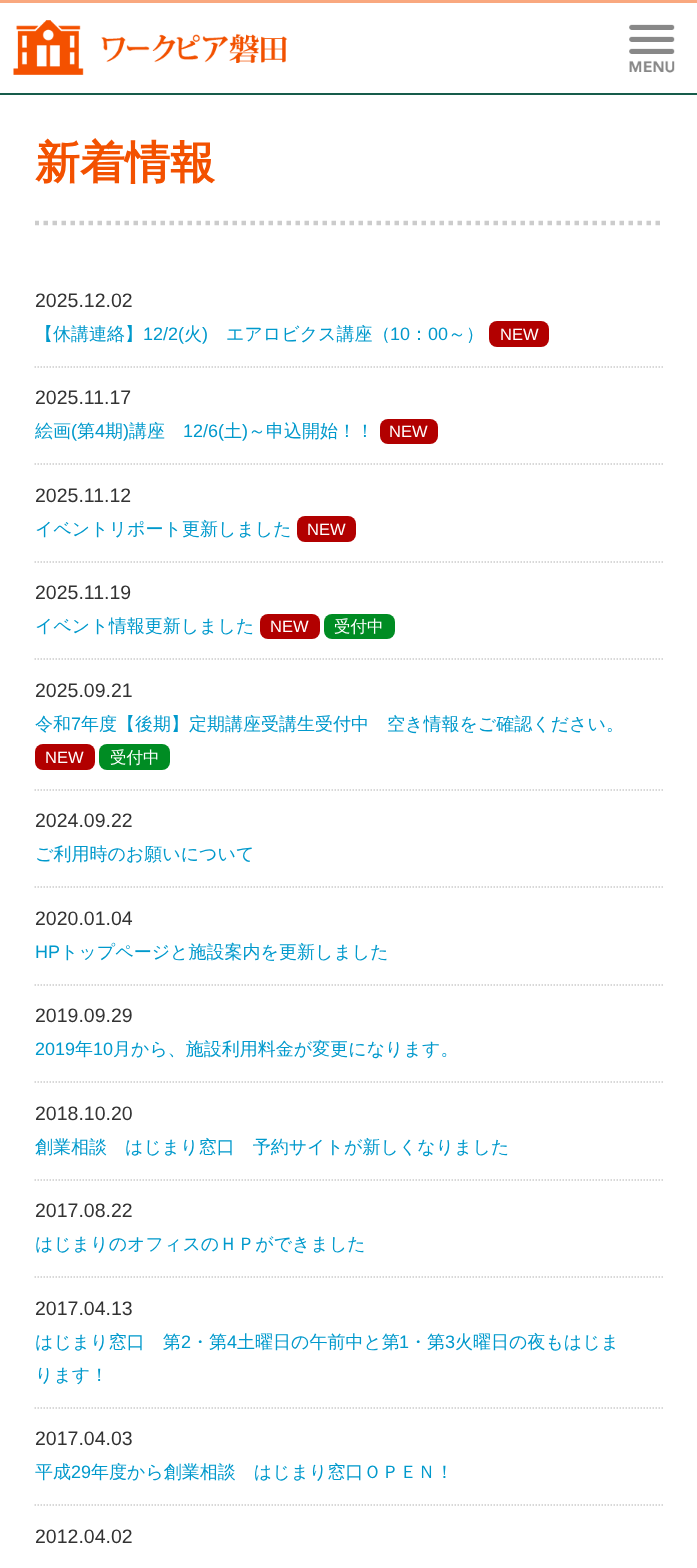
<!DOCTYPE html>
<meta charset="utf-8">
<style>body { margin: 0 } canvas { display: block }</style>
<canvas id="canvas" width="697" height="1568"></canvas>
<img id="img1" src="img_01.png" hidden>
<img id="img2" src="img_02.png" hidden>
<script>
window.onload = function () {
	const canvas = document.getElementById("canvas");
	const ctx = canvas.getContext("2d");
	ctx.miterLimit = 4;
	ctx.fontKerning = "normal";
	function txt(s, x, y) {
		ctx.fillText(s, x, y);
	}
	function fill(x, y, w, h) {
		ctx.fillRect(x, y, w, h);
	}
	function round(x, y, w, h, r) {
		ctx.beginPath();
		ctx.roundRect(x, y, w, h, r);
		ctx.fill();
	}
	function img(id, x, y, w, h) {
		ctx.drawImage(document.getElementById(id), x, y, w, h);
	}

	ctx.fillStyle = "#F9A87F";
	fill(0, 0, 697, 1568);
	ctx.fillStyle = "#FFFFFF";
	fill(0, 3, 697, 1565);
	ctx.fillStyle = "#165C4B";
	fill(0, 93, 697, 2);
	img("img1", 13, 20, 275, 55);
	img("img2", 629, 24, 46, 49);
	ctx.save();
	ctx.beginPath();
	ctx.rect(35, 191, 628, 64);
	ctx.clip();
	ctx.beginPath();
	ctx.moveTo(34.5, 223);
	ctx.lineTo(663, 223);
	ctx.strokeStyle = "#CCCCCC";
	ctx.lineWidth = 4.5;
	ctx.setLineDash([4.5, 4.5]);
	ctx.stroke();
	ctx.restore();
	ctx.beginPath();
	ctx.moveTo(34.5, 367);
	ctx.lineTo(663, 367);
	ctx.strokeStyle = "#CCCCCC";
	ctx.lineWidth = 1.5;
	ctx.setLineDash([1.5, 1.5]);
	ctx.stroke();
	ctx.fillStyle = "#B20000";
	round(489, 321, 60, 26, 8);
	ctx.beginPath();
	ctx.moveTo(34.5, 464);
	ctx.lineTo(663, 464);
	ctx.stroke();
	round(380, 419, 58, 25, 8);
	ctx.beginPath();
	ctx.moveTo(34.5, 562);
	ctx.lineTo(663, 562);
	ctx.stroke();
	round(297, 516, 59, 26, 8);
	ctx.beginPath();
	ctx.moveTo(34.5, 659);
	ctx.lineTo(663, 659);
	ctx.stroke();
	round(260, 614, 60, 25, 8);
	ctx.fillStyle = "#008C23";
	round(324, 614, 71, 25, 8);
	ctx.beginPath();
	ctx.moveTo(34.5, 790);
	ctx.lineTo(663, 790);
	ctx.stroke();
	ctx.fillStyle = "#B20000";
	round(35, 744, 60, 26, 8);
	ctx.fillStyle = "#008C23";
	round(99, 744, 71, 26, 8);
	ctx.beginPath();
	ctx.moveTo(34.5, 887);
	ctx.lineTo(663, 887);
	ctx.stroke();
	ctx.beginPath();
	ctx.moveTo(34.5, 985);
	ctx.lineTo(663, 985);
	ctx.stroke();
	ctx.beginPath();
	ctx.moveTo(34.5, 1082);
	ctx.lineTo(663, 1082);
	ctx.stroke();
	ctx.beginPath();
	ctx.moveTo(34.5, 1180);
	ctx.lineTo(663, 1180);
	ctx.stroke();
	ctx.beginPath();
	ctx.moveTo(34.5, 1277);
	ctx.lineTo(663, 1277);
	ctx.stroke();
	ctx.beginPath();
	ctx.moveTo(34.5, 1408);
	ctx.lineTo(663, 1408);
	ctx.stroke();
	ctx.beginPath();
	ctx.moveTo(34.5, 1505);
	ctx.lineTo(663, 1505);
	ctx.stroke();
	ctx.font = "bold 45px WenQuanYi Zen Hei";
	ctx.fillStyle = "#F35100";
	txt("新着情報", 35, 178);
	ctx.font = "19.5px Liberation Sans";
	ctx.fillStyle = "#333333";
	txt("2025.12.02", 35, 307);
	ctx.font = "500 18px WenQuanYi Zen Hei";
	ctx.fillStyle = "#0099CC";
	txt("【休講連絡】", 35, 340);
	ctx.font = "18px Liberation Sans";
	txt("12/2(", 143, 340);
	ctx.font = "500 18px WenQuanYi Zen Hei";
	txt("火", 184, 340);
	ctx.font = "18px Liberation Sans";
	txt(")", 202, 340);
	ctx.font = "500 18px WenQuanYi Zen Hei";
	txt("エアロビクス講座（", 226, 340);
	ctx.font = "18px Liberation Sans";
	txt("10", 390, 340);
	ctx.font = "500 18px WenQuanYi Zen Hei";
	txt("：", 410, 340);
	ctx.font = "18px Liberation Sans";
	txt("00", 428, 340);
	ctx.font = "500 18px WenQuanYi Zen Hei";
	txt("～）", 448, 340);
	ctx.font = "16.5px Liberation Sans";
	ctx.fillStyle = "#FFFFFF";
	txt("NEW", 500, 340);
	ctx.font = "19.5px Liberation Sans";
	ctx.fillStyle = "#333333";
	txt("2025.11.17", 35, 404);
	ctx.font = "500 18px WenQuanYi Zen Hei";
	ctx.fillStyle = "#0099CC";
	txt("絵画", 35, 437);
	ctx.font = "18px Liberation Sans";
	txt("(", 71, 437);
	ctx.font = "500 18px WenQuanYi Zen Hei";
	txt("第", 77, 437);
	ctx.font = "18px Liberation Sans";
	txt("4", 95, 437);
	ctx.font = "500 18px WenQuanYi Zen Hei";
	txt("期", 105, 437);
	ctx.font = "18px Liberation Sans";
	txt(")", 123, 437);
	ctx.font = "500 18px WenQuanYi Zen Hei";
	txt("講座", 129, 437);
	ctx.font = "18px Liberation Sans";
	txt("12/6(", 183, 437);
	ctx.font = "500 18px WenQuanYi Zen Hei";
	txt("土", 224, 437);
	ctx.font = "18px Liberation Sans";
	txt(")", 242, 437);
	ctx.font = "500 18px WenQuanYi Zen Hei";
	txt("～申込開始！！", 248, 437);
	ctx.font = "16.5px Liberation Sans";
	ctx.fillStyle = "#FFFFFF";
	txt("NEW", 389, 437);
	ctx.font = "19.5px Liberation Sans";
	ctx.fillStyle = "#333333";
	txt("2025.11.12", 35, 502);
	ctx.font = "500 18px WenQuanYi Zen Hei";
	ctx.fillStyle = "#0099CC";
	txt("イベントリポート更新しました", 35, 535);
	ctx.font = "16.5px Liberation Sans";
	ctx.fillStyle = "#FFFFFF";
	txt("NEW", 307, 535);
	ctx.font = "19.5px Liberation Sans";
	ctx.fillStyle = "#333333";
	txt("2025.11.19", 35, 599);
	ctx.font = "500 18px WenQuanYi Zen Hei";
	ctx.fillStyle = "#0099CC";
	txt("イベント情報更新しました", 35, 632);
	ctx.font = "16.5px Liberation Sans";
	ctx.fillStyle = "#FFFFFF";
	txt("NEW", 270, 632);
	ctx.font = "500 16.5px WenQuanYi Zen Hei";
	txt("受付中", 334, 632);
	ctx.font = "19.5px Liberation Sans";
	ctx.fillStyle = "#333333";
	txt("2025.09.21", 35, 697);
	ctx.font = "500 18px WenQuanYi Zen Hei";
	ctx.fillStyle = "#0099CC";
	txt("令和", 35, 730);
	ctx.font = "18px Liberation Sans";
	txt("7", 71, 730);
	ctx.font = "500 18px WenQuanYi Zen Hei";
	txt("年度【後期】定期講座受講生受付中　空き情報をご確認ください。", 81, 730);
	ctx.font = "16.5px Liberation Sans";
	ctx.fillStyle = "#FFFFFF";
	txt("NEW", 45, 763);
	ctx.font = "500 16.5px WenQuanYi Zen Hei";
	txt("受付中", 110, 763);
	ctx.font = "19.5px Liberation Sans";
	ctx.fillStyle = "#333333";
	txt("2024.09.22", 35, 827);
	ctx.font = "500 18px WenQuanYi Zen Hei";
	ctx.fillStyle = "#0099CC";
	txt("ご利用時のお願いについて", 35, 860);
	ctx.font = "19.5px Liberation Sans";
	ctx.fillStyle = "#333333";
	txt("2020.01.04", 35, 925);
	ctx.font = "18px Liberation Sans";
	ctx.fillStyle = "#0099CC";
	txt("HP", 35, 958);
	ctx.font = "500 18px WenQuanYi Zen Hei";
	txt("トップページと施設案内を更新しました", 60, 958);
	ctx.font = "19.5px Liberation Sans";
	ctx.fillStyle = "#333333";
	txt("2019.09.29", 35, 1022);
	ctx.font = "18px Liberation Sans";
	ctx.fillStyle = "#0099CC";
	txt("2019", 35, 1055);
	ctx.font = "500 18px WenQuanYi Zen Hei";
	txt("年", 75, 1055);
	ctx.font = "18px Liberation Sans";
	txt("10", 93, 1055);
	ctx.font = "500 18px WenQuanYi Zen Hei";
	txt("月から、施設利用料金が変更になります。", 113, 1055);
	ctx.font = "19.5px Liberation Sans";
	ctx.fillStyle = "#333333";
	txt("2018.10.20", 35, 1120);
	ctx.font = "500 18px WenQuanYi Zen Hei";
	ctx.fillStyle = "#0099CC";
	txt("創業相談　はじまり窓口　予約サイトが新しくなりました", 35, 1153);
	ctx.font = "19.5px Liberation Sans";
	ctx.fillStyle = "#333333";
	txt("2017.08.22", 35, 1217);
	ctx.font = "500 18px WenQuanYi Zen Hei";
	ctx.fillStyle = "#0099CC";
	txt("はじまりのオフィスのＨＰができました", 35, 1250);
	ctx.font = "19.5px Liberation Sans";
	ctx.fillStyle = "#333333";
	txt("2017.04.13", 35, 1315);
	ctx.font = "500 18px WenQuanYi Zen Hei";
	ctx.fillStyle = "#0099CC";
	txt("はじまり窓口　第", 35, 1348);
	ctx.font = "18px Liberation Sans";
	txt("2", 181, 1348);
	ctx.font = "500 18px WenQuanYi Zen Hei";
	txt("・第", 191, 1348);
	ctx.font = "18px Liberation Sans";
	txt("4", 227, 1348);
	ctx.font = "500 18px WenQuanYi Zen Hei";
	txt("土曜日の午前中と第", 237, 1348);
	ctx.font = "18px Liberation Sans";
	txt("1", 399, 1348);
	ctx.font = "500 18px WenQuanYi Zen Hei";
	txt("・第", 409, 1348);
	ctx.font = "18px Liberation Sans";
	txt("3", 445, 1348);
	ctx.font = "500 18px WenQuanYi Zen Hei";
	txt("火曜日の夜もはじま", 455, 1348);
	txt("ります！", 35, 1381);
	ctx.font = "19.5px Liberation Sans";
	ctx.fillStyle = "#333333";
	txt("2017.04.03", 35, 1445);
	ctx.font = "500 18px WenQuanYi Zen Hei";
	ctx.fillStyle = "#0099CC";
	txt("平成", 35, 1478);
	ctx.font = "18px Liberation Sans";
	txt("29", 71, 1478);
	ctx.font = "500 18px WenQuanYi Zen Hei";
	txt("年度から創業相談　はじまり窓口ＯＰＥＮ！", 91, 1478);
	ctx.font = "19.5px Liberation Sans";
	ctx.fillStyle = "#333333";
	txt("2012.04.02", 35, 1543);
};
</script>
